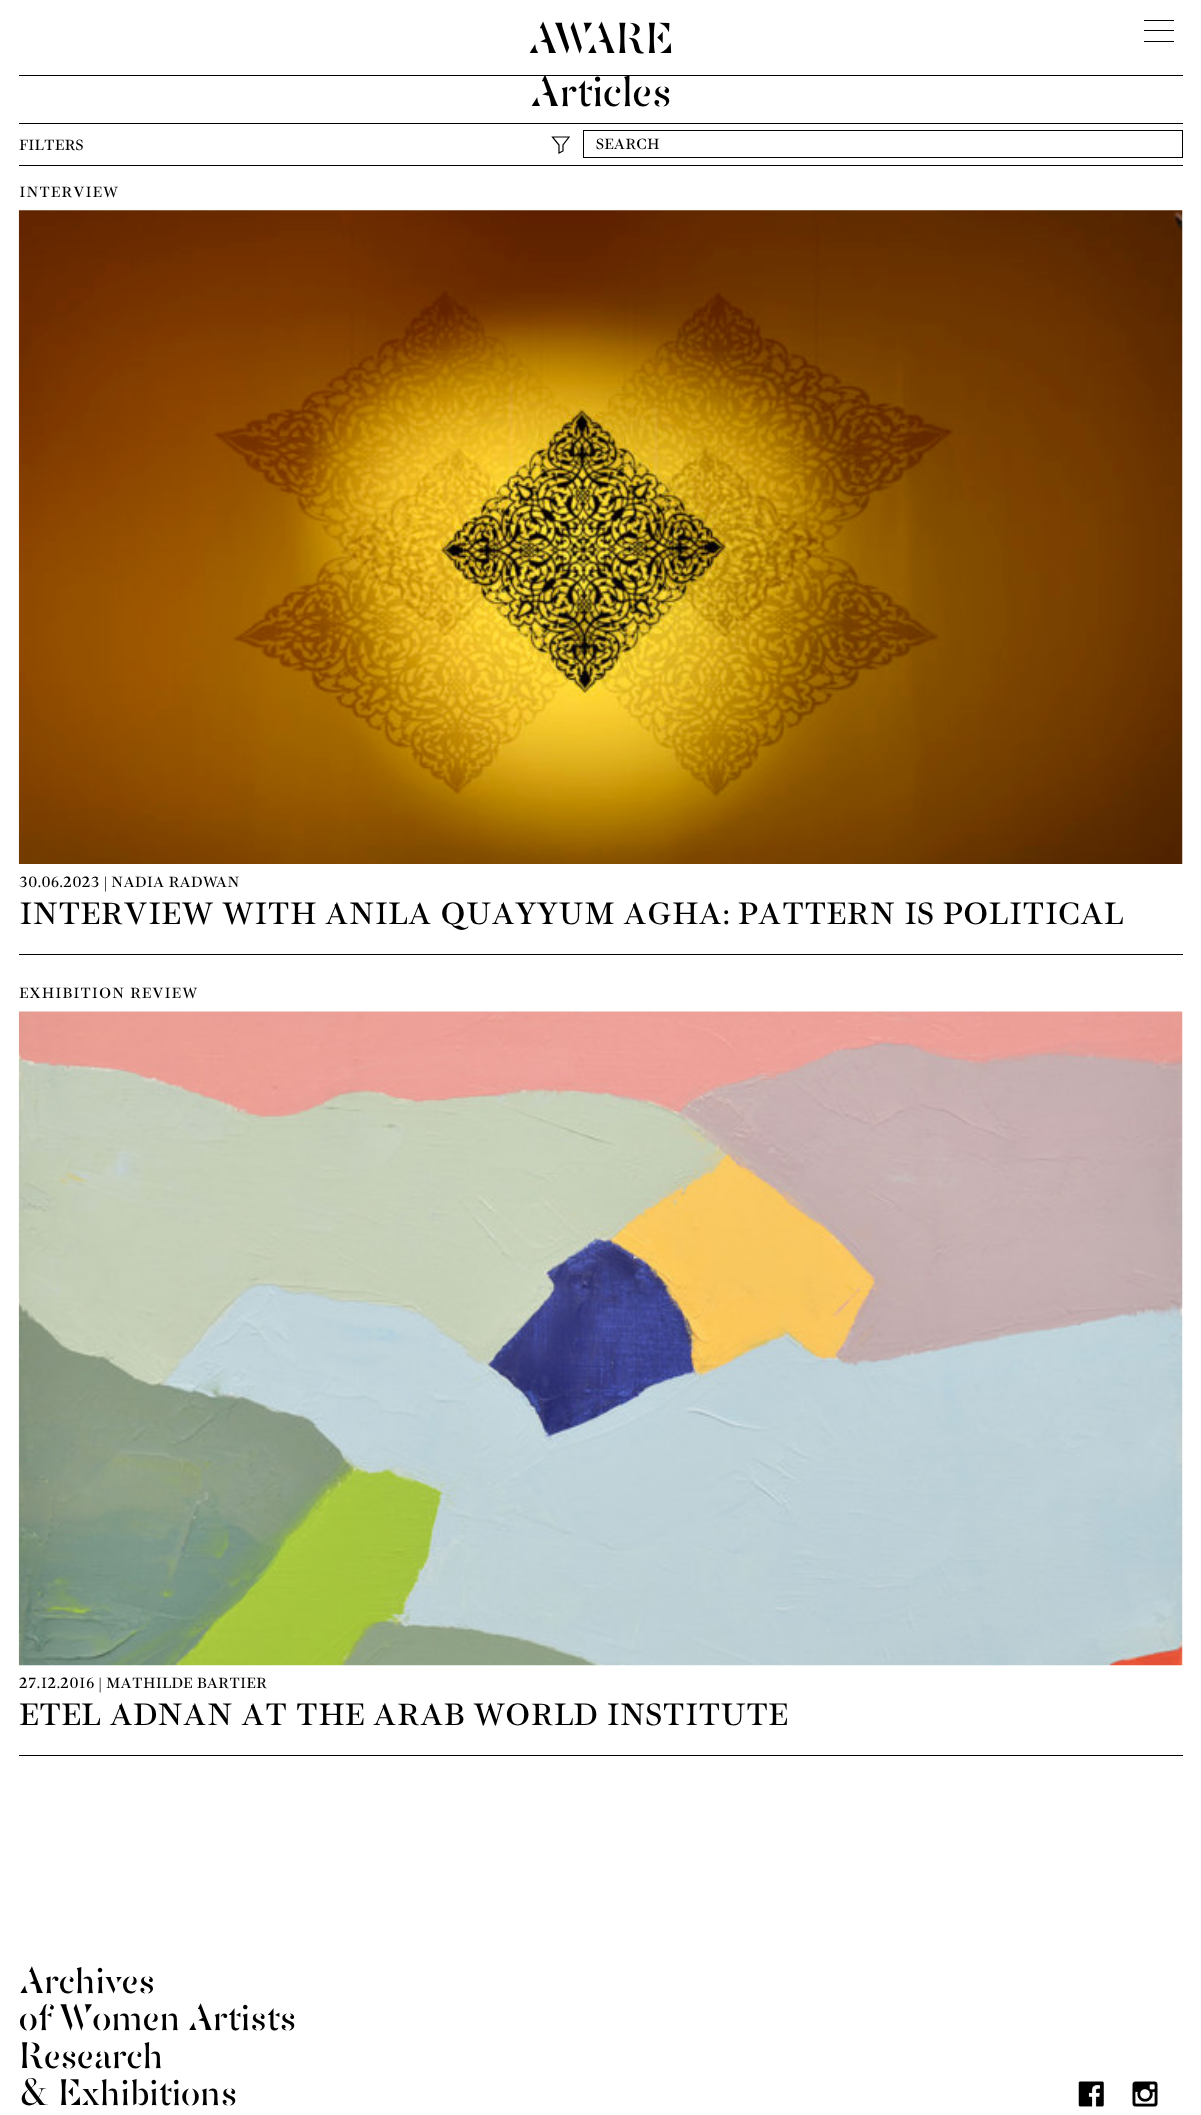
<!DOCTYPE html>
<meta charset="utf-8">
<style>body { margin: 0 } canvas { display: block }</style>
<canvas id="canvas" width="1201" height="2115"></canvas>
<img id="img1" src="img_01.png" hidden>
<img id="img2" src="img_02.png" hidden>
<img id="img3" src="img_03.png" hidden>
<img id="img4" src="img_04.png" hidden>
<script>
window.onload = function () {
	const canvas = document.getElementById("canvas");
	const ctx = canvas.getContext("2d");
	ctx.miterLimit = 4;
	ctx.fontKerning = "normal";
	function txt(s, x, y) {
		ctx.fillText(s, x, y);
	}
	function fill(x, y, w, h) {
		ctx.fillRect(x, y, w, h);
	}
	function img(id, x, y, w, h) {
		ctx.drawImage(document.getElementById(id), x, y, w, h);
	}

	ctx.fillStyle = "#FFFFFF";
	fill(0, 0, 1201, 2115);
	ctx.fillStyle = "#000000";
	fill(1144, 20, 30, 1);
	fill(1144, 41, 30, 1);
	fill(1144, 30, 30, 1);
	fill(19, 123, 1164, 1);
	fill(19, 165, 1164, 1);
	ctx.beginPath();
	ctx.moveTo(569, 137);
	ctx.lineTo(552.5, 137);
	ctx.lineTo(559, 145);
	ctx.lineTo(559, 153);
	ctx.lineTo(563, 151);
	ctx.lineTo(563, 145);
	ctx.closePath();
	ctx.strokeStyle = "#000000";
	ctx.lineWidth = 1.2;
	ctx.stroke();
	ctx.lineWidth = 1;
	ctx.strokeRect(583.5, 130.5, 599, 27);
	fill(19, 954, 1164, 1);
	img("img1", 18, 210, 1165, 654);
	fill(19, 1755, 1164, 1);
	img("img2", 18, 1011, 1165, 655);
	img("img3", 1078, 2081, 26, 26);
	img("img4", 1132, 2081, 26, 26);
	ctx.font = "200 44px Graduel";
	txt("AWARE", 528, 53);
	txt("Articles", 530, 106);
	ctx.fillStyle = "#FFFFFF";
	fill(544, 74, 86, 2);
	ctx.fillStyle = "#000000";
	fill(19, 75, 1164, 1);
	ctx.font = "15px Graduel";
	txt("FILTERS", 19, 150);
	txt("SEARCH", 596, 149);
	ctx.letterSpacing = "0.75px";
	txt("INTERVIEW", 19, 197);
	ctx.letterSpacing = "0px";
	txt("30.06.2023 | NADIA RADWAN", 19, 887);
	ctx.font = "31.25px Graduel";
	txt("INTERVIEW WITH ANILA QUAYYUM AGHA: PATTERN IS POLITICAL", 19, 924);
	ctx.letterSpacing = "0.75px";
	ctx.font = "15px Graduel";
	txt("EXHIBITION REVIEW", 19, 998);
	ctx.letterSpacing = "0px";
	txt("27.12.2016 | MATHILDE BARTIER", 19, 1688);
	ctx.font = "31.25px Graduel";
	txt("ETEL ADNAN AT THE ARAB WORLD INSTITUTE", 19, 1725);
	ctx.font = "200 37.5px Graduel";
	txt("Archives", 19, 1993);
	txt("of Women Artists", 19, 2030);
	txt("Research", 19, 2068);
	txt("& Exhibitions", 19, 2105);
};
</script>
